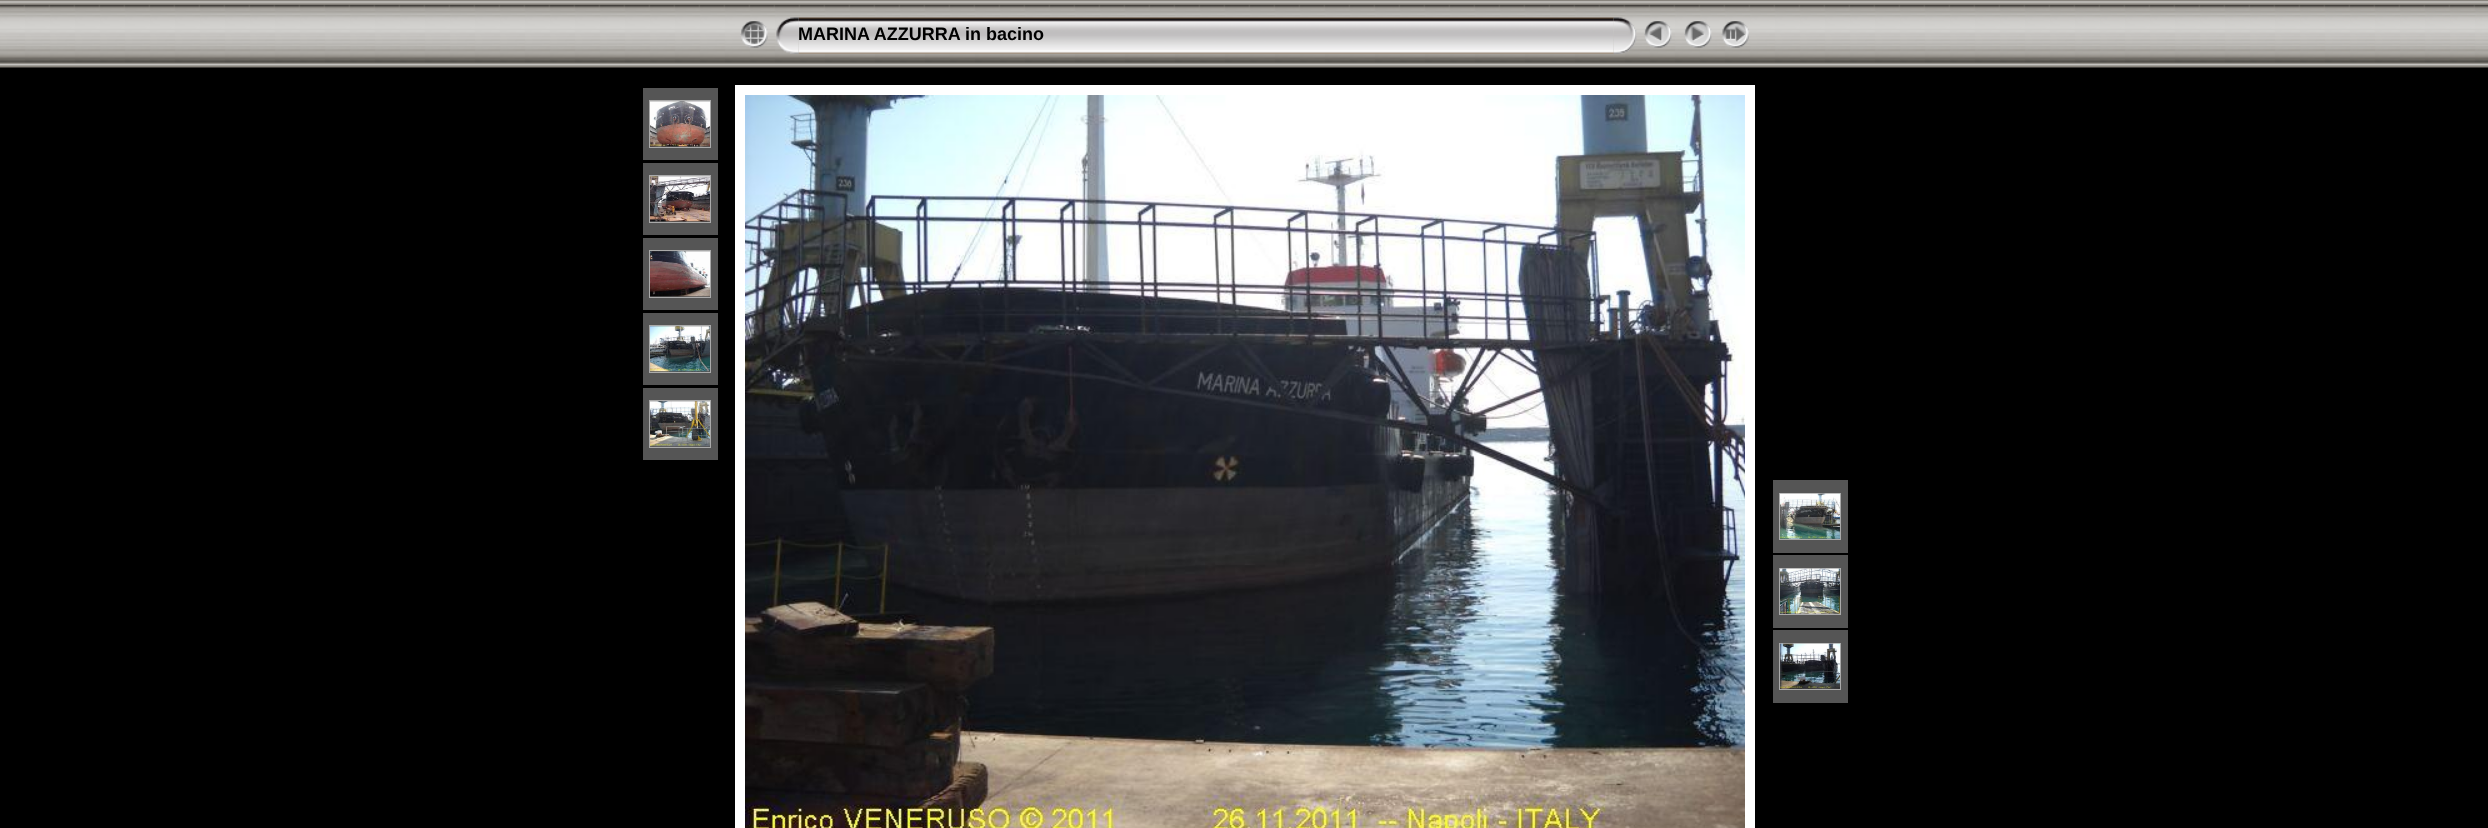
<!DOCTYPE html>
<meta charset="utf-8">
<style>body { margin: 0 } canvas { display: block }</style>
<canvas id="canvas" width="2488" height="828"></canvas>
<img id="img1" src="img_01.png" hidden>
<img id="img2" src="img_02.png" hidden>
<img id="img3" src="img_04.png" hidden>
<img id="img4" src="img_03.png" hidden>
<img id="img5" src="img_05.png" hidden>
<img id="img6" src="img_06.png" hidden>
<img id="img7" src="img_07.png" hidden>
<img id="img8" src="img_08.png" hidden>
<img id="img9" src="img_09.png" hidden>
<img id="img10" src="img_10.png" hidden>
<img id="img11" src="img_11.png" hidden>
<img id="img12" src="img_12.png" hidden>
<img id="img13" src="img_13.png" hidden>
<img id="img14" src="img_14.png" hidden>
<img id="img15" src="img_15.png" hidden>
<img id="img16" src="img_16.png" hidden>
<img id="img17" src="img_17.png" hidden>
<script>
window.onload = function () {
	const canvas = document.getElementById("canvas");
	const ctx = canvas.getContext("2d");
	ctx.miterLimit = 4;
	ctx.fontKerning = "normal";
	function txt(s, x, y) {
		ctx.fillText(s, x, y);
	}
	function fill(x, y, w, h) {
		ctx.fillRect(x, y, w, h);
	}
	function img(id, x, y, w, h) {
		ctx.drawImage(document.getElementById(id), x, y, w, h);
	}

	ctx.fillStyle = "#000000";
	fill(0, 0, 2488, 828);
	img("img1", 0, 0, 2488, 68);
	img("img2", 740, 21, 28, 27);
	img("img3", 798, 17, 816, 37);
	img("img4", 776, 17, 23, 37);
	img("img5", 1613, 17, 24, 37);
	img("img6", 1644, 21, 28, 27);
	img("img7", 1684, 21, 28, 27);
	img("img8", 1721, 21, 28, 27);
	ctx.fillStyle = "#555555";
	fill(643, 88, 75, 72);
	ctx.strokeStyle = "#AAAAAA";
	ctx.strokeRect(649.5, 100.5, 61, 47);
	img("img9", 650, 101, 60, 46);
	fill(643, 163, 75, 72);
	ctx.strokeRect(649.5, 175.5, 61, 47);
	img("img10", 650, 176, 60, 46);
	fill(643, 238, 75, 72);
	ctx.strokeRect(649.5, 250.5, 61, 47);
	img("img11", 650, 251, 60, 46);
	fill(643, 313, 75, 72);
	ctx.strokeRect(649.5, 325.5, 61, 47);
	img("img12", 650, 326, 60, 46);
	fill(643, 388, 75, 72);
	ctx.strokeRect(649.5, 400.5, 61, 47);
	img("img13", 650, 401, 60, 46);
	ctx.strokeStyle = "#FFFFFF";
	ctx.lineWidth = 10;
	ctx.strokeRect(740, 90, 1010, 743);
	img("img14", 745, 95, 1000, 733);
	fill(1773, 480, 75, 73);
	ctx.strokeStyle = "#AAAAAA";
	ctx.lineWidth = 1;
	ctx.strokeRect(1779.5, 493.5, 61, 46);
	img("img15", 1780, 493, 60, 46);
	fill(1773, 555, 75, 73);
	ctx.strokeRect(1779.5, 568.5, 61, 46);
	img("img16", 1780, 568, 60, 46);
	fill(1773, 630, 75, 73);
	ctx.strokeRect(1779.5, 643.5, 61, 46);
	img("img17", 1780, 643, 60, 46);
	ctx.font = "bold 18px Liberation Sans";
	ctx.fillStyle = "#000000";
	txt("MARINA AZZURRA in bacino", 798, 40);
};
</script>
